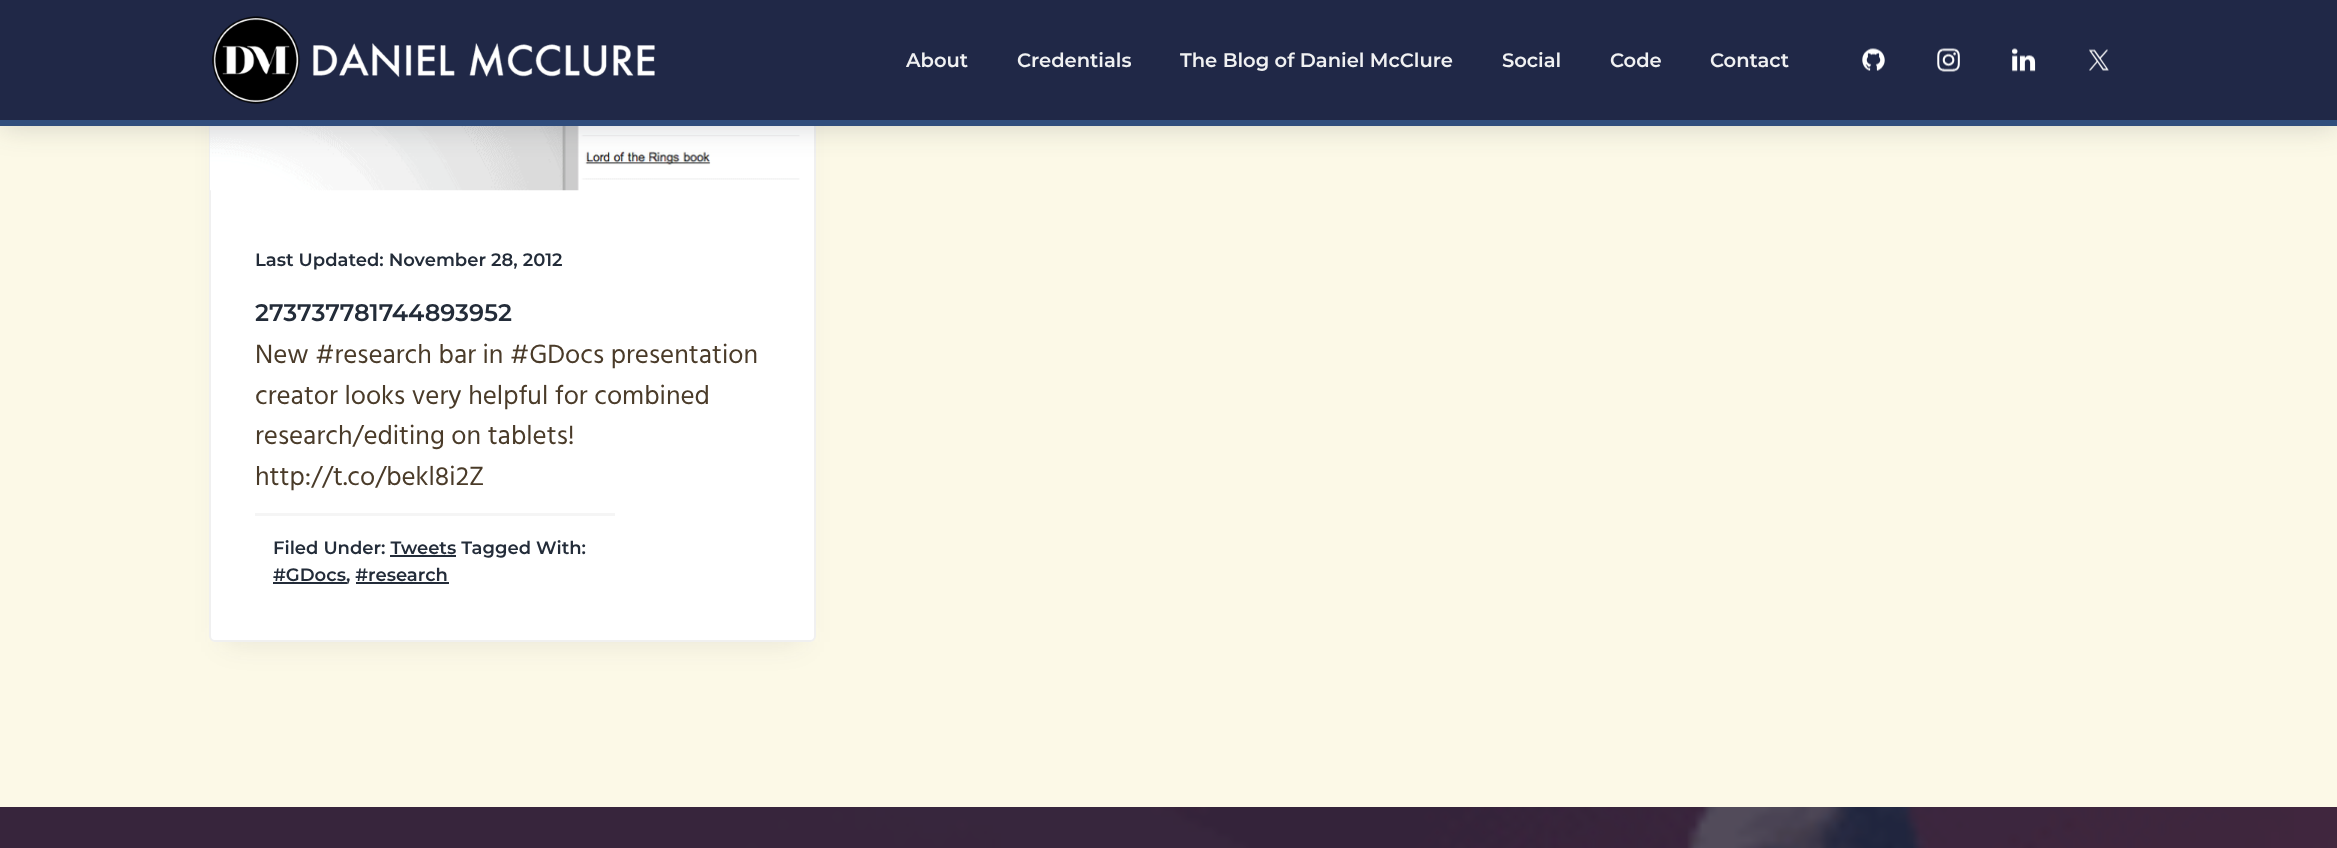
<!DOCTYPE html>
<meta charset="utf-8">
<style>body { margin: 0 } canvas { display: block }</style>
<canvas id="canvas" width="2337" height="848"></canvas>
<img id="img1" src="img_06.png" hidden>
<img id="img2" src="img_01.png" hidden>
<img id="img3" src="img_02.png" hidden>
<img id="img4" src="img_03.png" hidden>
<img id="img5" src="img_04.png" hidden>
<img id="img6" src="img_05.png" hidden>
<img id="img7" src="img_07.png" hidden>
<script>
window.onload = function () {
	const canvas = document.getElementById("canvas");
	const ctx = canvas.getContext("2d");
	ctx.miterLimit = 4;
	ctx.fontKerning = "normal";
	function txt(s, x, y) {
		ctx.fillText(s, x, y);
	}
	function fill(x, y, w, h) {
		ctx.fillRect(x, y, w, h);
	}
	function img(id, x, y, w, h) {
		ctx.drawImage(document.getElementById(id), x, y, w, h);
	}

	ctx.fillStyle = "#FCF9E7";
	fill(0, 0, 2337, 848);
	ctx.fillStyle = "rgba(35, 44, 57, 0.1)";
	ctx.filter = "blur(15px)";
	ctx.beginPath();
	ctx.rect(224, -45, 577, 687);
	ctx.fill();
	ctx.filter = "none";
	ctx.fillStyle = "#FFFFFF";
	ctx.beginPath();
	ctx.roundRect(210, -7, 605, 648, 5);
	ctx.fill();
	ctx.strokeStyle = "#F0F0F0";
	ctx.lineWidth = 2;
	ctx.stroke();
	img("img1", 210, 126, 590, 65);
	ctx.fillStyle = "rgba(35, 44, 57, 0.2)";
	ctx.filter = "blur(15px)";
	ctx.beginPath();
	ctx.rect(0, 0, 2337, 126);
	ctx.fill();
	ctx.filter = "none";
	ctx.fillStyle = "#202847";
	fill(0, 0, 2337, 120);
	ctx.fillStyle = "#304D7C";
	fill(0, 120, 2337, 6);
	img("img2", 212, 16, 443, 88);
	img("img3", 1862, 48, 23, 23);
	img("img4", 1937, 48, 23, 24);
	img("img5", 2012, 48, 24, 24);
	img("img6", 2089, 49, 20, 22);
	ctx.fillStyle = "#F5F5F5";
	fill(255, 513, 360, 3);
	ctx.fillStyle = "#232C39";
	fill(390, 555, 66, 2);
	fill(273, 582, 74, 2);
	fill(356, 582, 93, 2);
	img("img7", 0, 807, 2337, 41);
	ctx.font = "100 19.5px Montserrat";
	ctx.fillStyle = "#F0F1F2";
	txt("About", 906, 67);
	txt("Credentials", 1017, 67);
	txt("The Blog of Daniel McClure", 1180, 67);
	txt("Social", 1502, 67);
	txt("Code", 1610, 67);
	txt("Contact", 1710, 67);
	ctx.font = "100 18px Montserrat";
	ctx.fillStyle = "#232C39";
	txt("Last Updated: November 28, 2012", 255, 266);
	ctx.font = "100 24px Montserrat";
	txt("273737781744893952", 255, 321);
	ctx.font = "27px Hind";
	ctx.fillStyle = "#4A3B29";
	txt("New #research bar in #GDocs presentation", 255, 363);
	txt("creator looks very helpful for combined", 255, 404);
	txt("research/editing on tablets!", 255, 444);
	txt("http://t.co/bekl8i2Z", 255, 485);
	ctx.font = "100 18px Montserrat";
	ctx.fillStyle = "#232C39";
	txt("Filed Under: Tweets Tagged With:", 273, 554);
	txt("#GDocs, #research", 273, 581);
};
</script>
